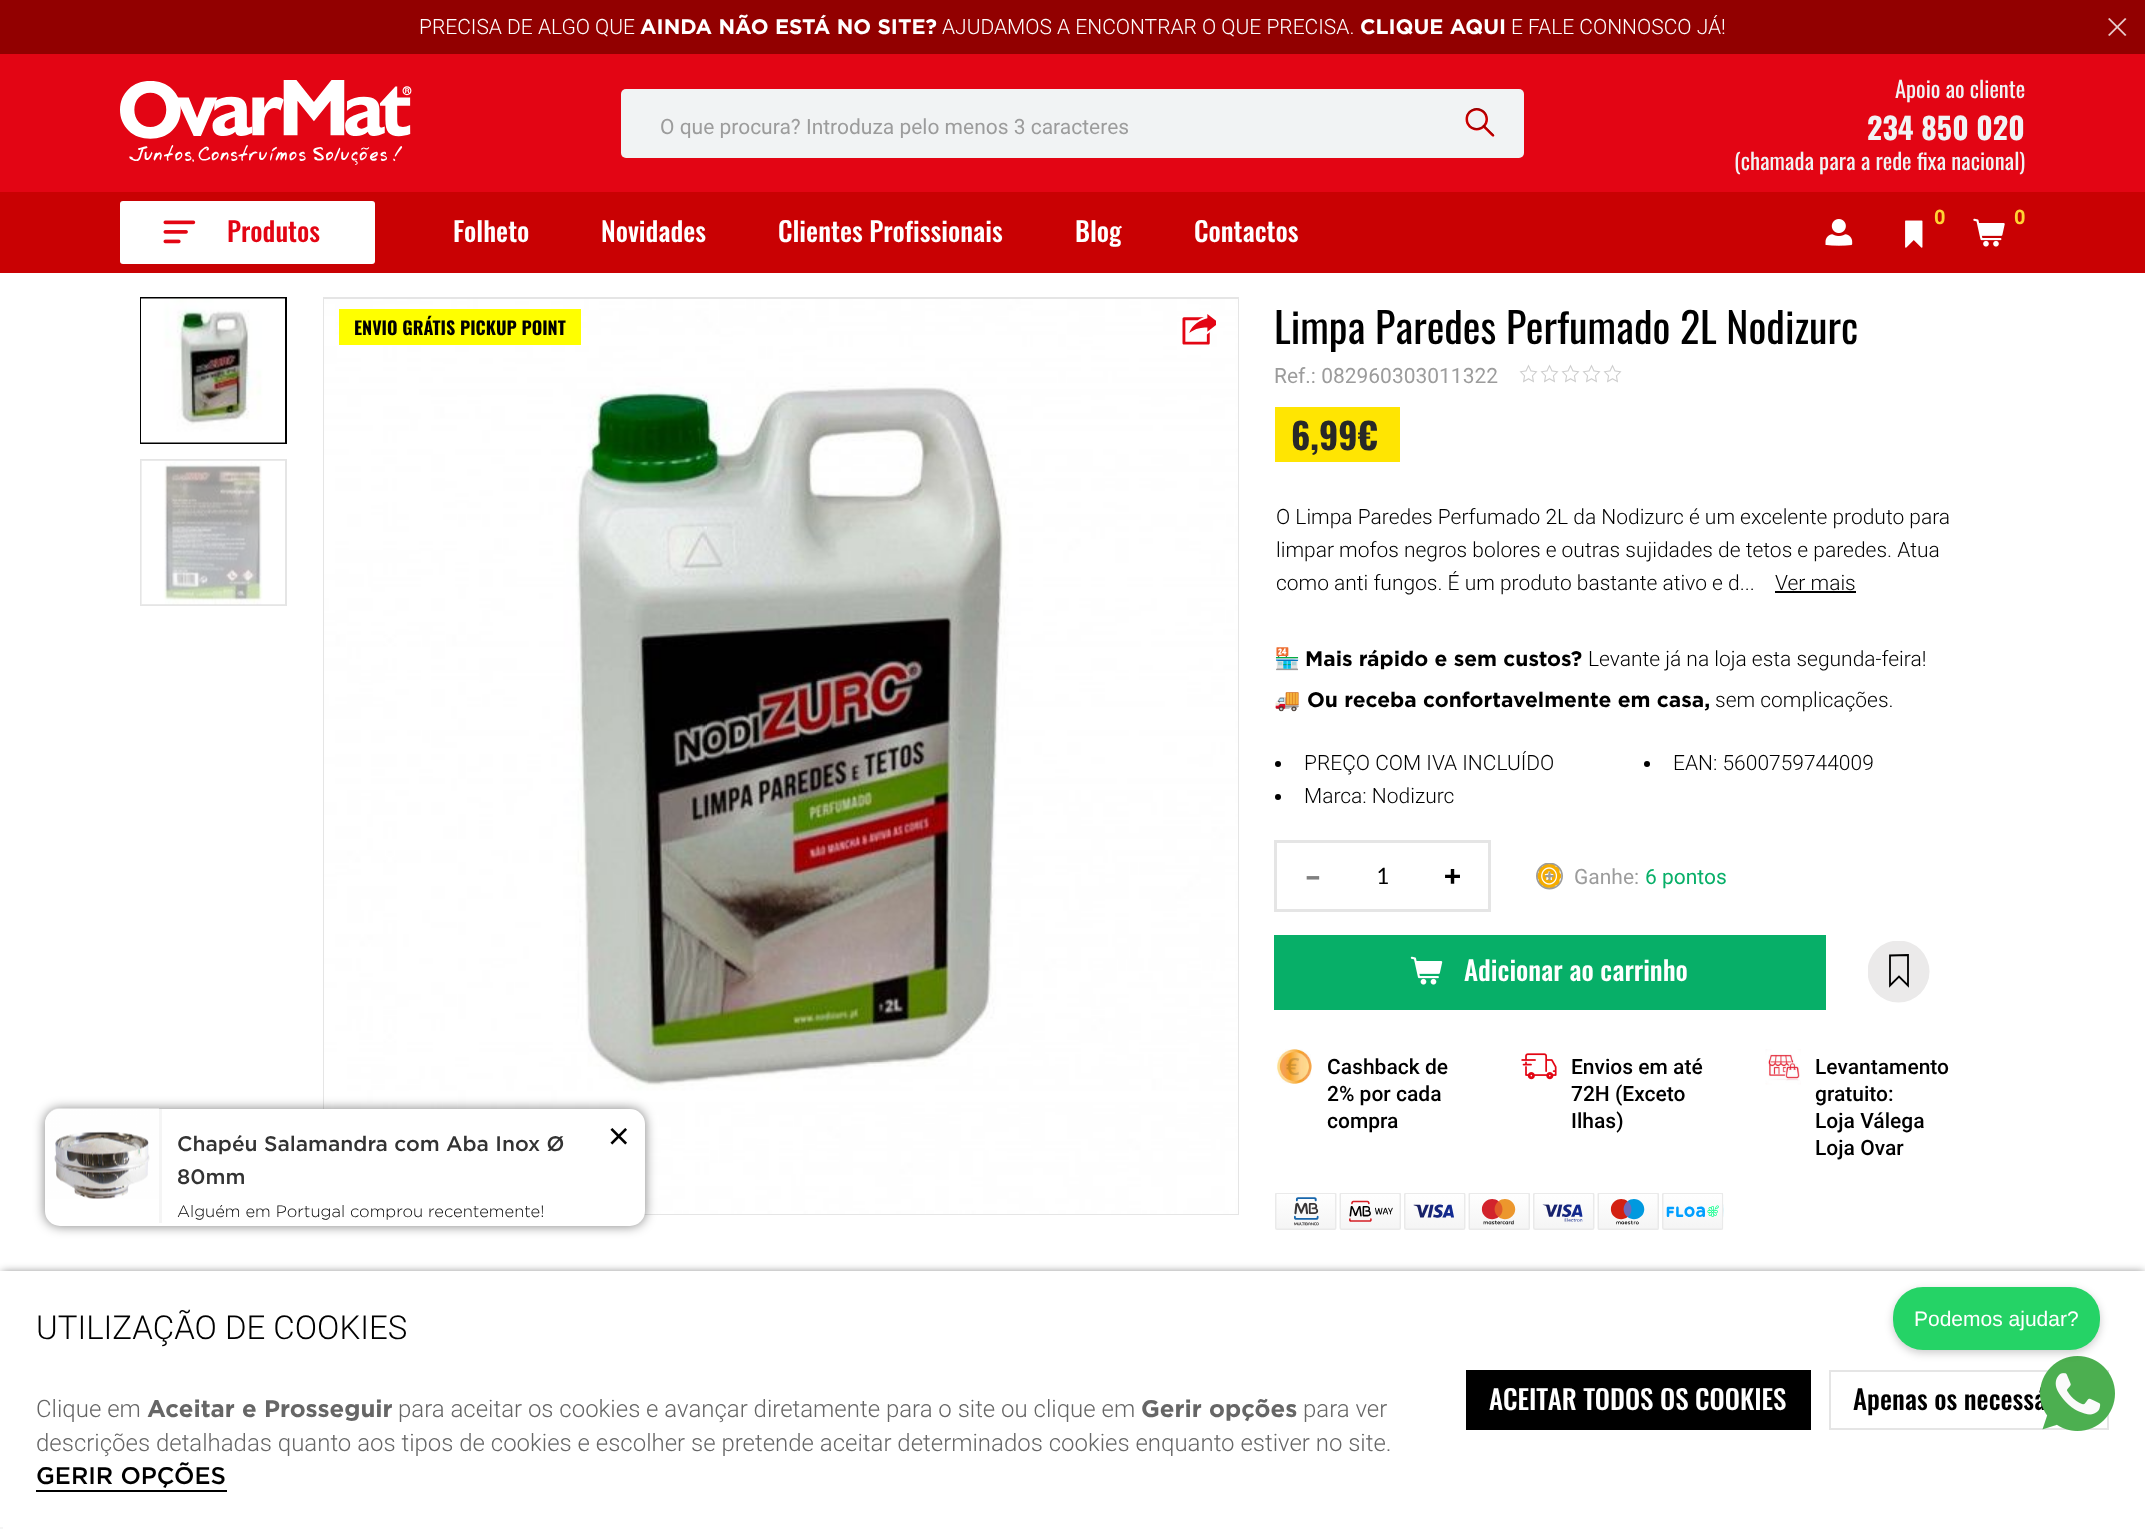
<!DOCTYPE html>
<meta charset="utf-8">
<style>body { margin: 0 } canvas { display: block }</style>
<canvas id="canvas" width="2145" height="1529"></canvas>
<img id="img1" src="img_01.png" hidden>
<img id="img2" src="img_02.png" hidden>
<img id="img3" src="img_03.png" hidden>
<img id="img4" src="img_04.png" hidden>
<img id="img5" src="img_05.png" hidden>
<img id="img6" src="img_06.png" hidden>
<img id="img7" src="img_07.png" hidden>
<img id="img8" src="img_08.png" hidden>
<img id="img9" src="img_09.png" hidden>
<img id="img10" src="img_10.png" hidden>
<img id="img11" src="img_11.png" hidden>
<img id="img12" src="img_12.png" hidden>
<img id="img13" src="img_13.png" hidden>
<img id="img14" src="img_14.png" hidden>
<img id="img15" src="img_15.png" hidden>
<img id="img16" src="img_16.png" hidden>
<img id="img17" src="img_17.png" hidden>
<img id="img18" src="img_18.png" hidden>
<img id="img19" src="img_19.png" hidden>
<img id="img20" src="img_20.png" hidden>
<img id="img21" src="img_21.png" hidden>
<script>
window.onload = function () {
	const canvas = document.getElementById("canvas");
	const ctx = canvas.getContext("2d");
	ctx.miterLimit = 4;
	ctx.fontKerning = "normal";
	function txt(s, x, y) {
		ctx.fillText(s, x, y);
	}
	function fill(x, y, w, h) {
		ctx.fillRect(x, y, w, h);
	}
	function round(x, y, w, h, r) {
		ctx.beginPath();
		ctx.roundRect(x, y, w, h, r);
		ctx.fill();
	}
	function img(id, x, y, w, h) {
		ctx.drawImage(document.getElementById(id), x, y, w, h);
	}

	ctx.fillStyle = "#FFFFFF";
	fill(0, 0, 2145, 1529);
	ctx.fillStyle = "#920000";
	fill(0, 0, 2145, 54);
	ctx.fillStyle = "#E9CCCC";
	ctx.beginPath();
	ctx.moveTo(2125, 18);
	ctx.lineTo(2126.5, 19);
	ctx.lineTo(2109.5, 36);
	ctx.lineTo(2108, 35);
	ctx.closePath();
	ctx.fill();
	ctx.beginPath();
	ctx.moveTo(2108, 19);
	ctx.lineTo(2109.5, 18);
	ctx.lineTo(2126.5, 35);
	ctx.lineTo(2125, 36);
	ctx.closePath();
	ctx.fill();
	ctx.fillStyle = "#E30514";
	fill(0, 54, 2145, 138);
	img("img1", 120, 80, 292, 85);
	ctx.fillStyle = "#F1F3F4";
	round(621, 89, 903, 69, 5);
	img("img2", 1465, 108, 30, 29);
	ctx.fillStyle = "#C90103";
	fill(0, 192, 2145, 81);
	img("img3", 1905, 220, 18, 28);
	img("img4", 1973, 218, 32, 29);
	img("img5", 1825, 219, 28, 27);
	ctx.fillStyle = "#FFFFFF";
	round(120, 201, 255, 63, 3);
	img("img6", 163, 220, 33, 24);
	ctx.strokeStyle = "#000000";
	ctx.lineWidth = 2;
	ctx.strokeRect(141, 298, 145, 145);
	img("img7", 141, 298, 144, 145);
	ctx.strokeStyle = "#E5E5E5";
	ctx.strokeRect(141, 460, 145, 145);
	img("img8", 141, 460, 144, 145);
	ctx.strokeRect(324, 298, 914, 916);
	img("img9", 324, 299, 914, 915);
	ctx.fillStyle = "#FFFF00";
	fill(339, 309, 242, 36);
	img("img10", 1182, 314, 34, 31);
	img("img11", 1519, 364, 19, 19);
	img("img11", 1540, 364, 19, 19);
	img("img11", 1561, 364, 19, 19);
	img("img11", 1582, 364, 19, 19);
	img("img11", 1603, 364, 19, 19);
	ctx.fillStyle = "#FFE502";
	fill(1275, 407, 125, 55);
	ctx.fillStyle = "#000000";
	fill(1775, 591, 81, 2);
	ctx.beginPath();
	ctx.arc(1278, 764, 3, 0, Math.PI * 2);
	ctx.fill();
	ctx.beginPath();
	ctx.arc(1647, 764, 3, 0, Math.PI * 2);
	ctx.fill();
	ctx.beginPath();
	ctx.arc(1278, 797, 3, 0, Math.PI * 2);
	ctx.fill();
	ctx.lineWidth = 3;
	ctx.strokeRect(1275.5, 841.5, 214, 69);
	img("img12", 1536, 863, 26, 26);
	img("img13", 1536, 863, 27, 27);
	ctx.fillStyle = "#07AF68";
	fill(1274, 935, 552, 75);
	img("img14", 1410, 956, 33, 29);
	ctx.save();
	ctx.beginPath();
	ctx.rect(1868, 941, 63, 63);
	ctx.clip();
	ctx.fillStyle = "#EBEAEA";
	ctx.beginPath();
	ctx.arc(1898.5, 971.5, 31, 0, Math.PI * 2);
	ctx.fill();
	ctx.restore();
	ctx.beginPath();
	ctx.moveTo(1908, 955);
	ctx.lineTo(1908, 985.5);
	ctx.lineTo(1899, 976.5);
	ctx.lineTo(1890, 985.5);
	ctx.lineTo(1890, 955.5);
	ctx.closePath();
	ctx.strokeStyle = "#000000";
	ctx.lineWidth = 1.8;
	ctx.stroke();
	img("img15", 1276, 1049, 36, 35);
	img("img16", 1521, 1053, 36, 27);
	img("img17", 1765, 1049, 36, 36);
	img("img18", 1275, 1193, 449, 37);
	ctx.fillStyle = "rgba(0, 0, 0, 0.5)";
	ctx.filter = "blur(6px)";
	ctx.beginPath();
	ctx.roundRect(45, 1109, 600, 117, 15);
	ctx.fill();
	ctx.filter = "none";
	ctx.fillStyle = "#FFFFFF";
	round(45, 1109, 600, 117, 15);
	ctx.fillStyle = "#F5F5F5";
	fill(159, 1109, 3, 114);
	img("img19", 45, 1108, 114, 91);
	img("img20", 610, 1128, 17, 17);
	ctx.fillStyle = "rgba(0, 0, 0, 0.5)";
	ctx.filter = "blur(4px)";
	ctx.beginPath();
	ctx.rect(2, 1272, 2142, 257);
	ctx.fill();
	ctx.filter = "none";
	ctx.fillStyle = "#FFFFFF";
	fill(0, 1271, 2145, 258);
	ctx.fillStyle = "#000000";
	fill(36, 1490, 191, 2);
	fill(1466, 1370, 345, 60);
	ctx.strokeStyle = "#E5E5E5";
	ctx.lineWidth = 2;
	ctx.strokeRect(1830, 1371, 278, 58);
	ctx.fillStyle = "#F5F5F5";
	fill(0, 1527, 3, 2);
	ctx.font = "300 21px Roboto";
	ctx.fillStyle = "#FFFFFF";
	txt("PRECISA DE ALGO QUE", 419, 34);
	ctx.font = "bold 21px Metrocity";
	txt("AINDA NÃO ESTÁ NO SITE?", 640, 34);
	ctx.font = "300 21px Roboto";
	txt("AJUDAMOS A ENCONTRAR O QUE PRECISA.", 942, 34);
	ctx.font = "bold 21px Metrocity";
	txt("CLIQUE AQUI", 1360, 34);
	ctx.font = "300 21px Roboto";
	txt("E FALE CONNOSCO JÁ!", 1511, 34);
	ctx.save();
	ctx.beginPath();
	ctx.rect(660, 114, 732, 24);
	ctx.clip();
	ctx.font = "21px Roboto";
	ctx.fillStyle = "#9C9C9C";
	txt("O que procura? Introduza pelo menos 3 caracteres", 660, 134);
	ctx.restore();
	ctx.font = "22.5px Oswald";
	ctx.fillStyle = "#F1F3F4";
	txt("Apoio ao cliente", 1895, 98);
	ctx.font = "bold 30px Oswald";
	txt("234 850 020", 1867, 140);
	ctx.font = "22.5px Oswald";
	txt("(chamada para a rede fixa nacional)", 1734, 170);
	ctx.font = "bold 20px Roboto";
	ctx.fillStyle = "#FFD333";
	txt("0", 1934, 224);
	txt("0", 2014, 224);
	ctx.font = "500 27px Oswald";
	ctx.fillStyle = "#E30513";
	txt("Produtos", 227, 242);
	ctx.fillStyle = "#FFFFFF";
	txt("Folheto", 453, 242);
	txt("Novidades", 601, 242);
	txt("Clientes Profissionais", 778, 242);
	txt("Blog", 1075, 242);
	txt("Contactos", 1194, 242);
	ctx.font = "bold 18px Oswald";
	ctx.fillStyle = "#000000";
	txt("ENVIO GRÁTIS PICKUP POINT", 354, 335);
	ctx.font = "42px Oswald";
	txt("Limpa Paredes Perfumado 2L Nodizurc", 1274, 344);
	ctx.font = "21px Roboto";
	ctx.fillStyle = "#9C9C9C";
	txt("Ref.: 082960303011322", 1274, 383);
	ctx.font = "bold 36px Oswald";
	ctx.fillStyle = "#282828";
	txt("6,99€", 1291, 450);
	ctx.font = "300 21px Roboto";
	ctx.fillStyle = "#000000";
	txt("O Limpa Paredes Perfumado 2L da Nodizurc é um excelente produto para", 1276, 524);
	txt("limpar mofos negros bolores e outras sujidades de tetos e paredes. Atua", 1276, 557);
	txt("como anti fungos. É um produto bastante ativo e d...", 1276, 590);
	txt("Ver mais", 1775, 590);
	ctx.font = "21px Noto Color Emoji";
	txt("🏪", 1274, 666);
	ctx.font = "bold 21px Metrocity";
	txt("Mais rápido e sem custos?", 1305, 666);
	ctx.font = "300 21px Roboto";
	txt("Levante já na loja esta segunda-feira!", 1588, 666);
	ctx.font = "21px Noto Color Emoji";
	txt("🚚", 1274, 707);
	ctx.font = "bold 21px Metrocity";
	txt("Ou receba confortavelmente em casa,", 1307, 707);
	ctx.font = "300 21px Roboto";
	txt("sem complicações.", 1715, 707);
	txt("PREÇO COM IVA INCLUÍDO", 1304, 770);
	txt("EAN: 5600759744009", 1673, 770);
	txt("Marca: Nodizurc", 1304, 803);
	ctx.font = "500 30px Metrocity";
	ctx.fillStyle = "#808080";
	txt("–", 1305, 887);
	ctx.font = "22.5px Lato";
	ctx.fillStyle = "#000000";
	txt("1", 1376, 884);
	ctx.font = "500 30px Metrocity";
	txt("+", 1443, 887);
	ctx.font = "21px Roboto";
	ctx.fillStyle = "#9C9C9C";
	txt("Ganhe:", 1574, 884);
	ctx.fillStyle = "#07AF68";
	txt("6 pontos", 1645, 884);
	ctx.font = "500 27px Oswald";
	ctx.fillStyle = "#FFFFFF";
	txt("Adicionar ao carrinho", 1464, 981);
	ctx.font = "500 21px Roboto";
	ctx.fillStyle = "#000000";
	txt("Cashback de", 1327, 1074);
	txt("2% por cada", 1327, 1101);
	txt("compra", 1327, 1128);
	txt("Envios em até", 1571, 1074);
	txt("72H (Exceto", 1571, 1101);
	txt("Ilhas)", 1571, 1128);
	txt("Levantamento", 1815, 1074);
	txt("gratuito:", 1815, 1101);
	txt("Loja Válega", 1815, 1128);
	txt("Loja Ovar", 1815, 1155);
	ctx.font = "500 21px Metrocity";
	ctx.fillStyle = "#333333";
	txt("Chapéu Salamandra com Aba Inox Ø", 177, 1151);
	txt("80mm", 177, 1184);
	ctx.font = "300 16.5px Metrocity";
	ctx.fillStyle = "#000000";
	txt("Alguém em Portugal comprou recentemente!", 177, 1217);
	ctx.font = "300 33px Roboto";
	txt("UTILIZAÇÃO DE COOKIES", 36, 1339);
	ctx.font = "300 24px Roboto";
	ctx.fillStyle = "#666666";
	txt("Clique em", 36, 1417);
	ctx.font = "bold 24px Metrocity";
	txt("Aceitar e Prosseguir", 147, 1417);
	ctx.font = "300 24px Roboto";
	txt("para aceitar os cookies e avançar diretamente para o site ou clique em", 398, 1417);
	ctx.font = "bold 24px Metrocity";
	txt("Gerir opções", 1141, 1417);
	ctx.font = "300 24px Roboto";
	txt("para ver", 1303, 1417);
	txt("descrições detalhadas quanto aos tipos de cookies e escolher se pretende aceitar determinados cookies enquanto estiver no site.", 36, 1451);
	ctx.font = "500 24px Metrocity";
	ctx.fillStyle = "#000000";
	txt("GERIR OPÇÕES", 36, 1484);
	ctx.font = "500 27px Oswald";
	ctx.fillStyle = "#FFFFFF";
	txt("ACEITAR TODOS OS COOKIES", 1489, 1410);
	ctx.fillStyle = "#000000";
	txt("Apenas os necessá", 1853, 1410);
	img("img21", 2040, 1356, 75, 75);
	ctx.fillStyle = "rgba(0, 0, 0, 0.2)";
	ctx.filter = "blur(4.5px)";
	ctx.beginPath();
	ctx.roundRect(1893, 1290, 207, 63, 30);
	ctx.fill();
	ctx.filter = "none";
	ctx.fillStyle = "#25D366";
	round(1893, 1287, 207, 63, 30);
	ctx.font = "21px Liberation Sans";
	ctx.fillStyle = "#FFFFFF";
	txt("Podemos ajudar?", 1914, 1326);
};
</script>
